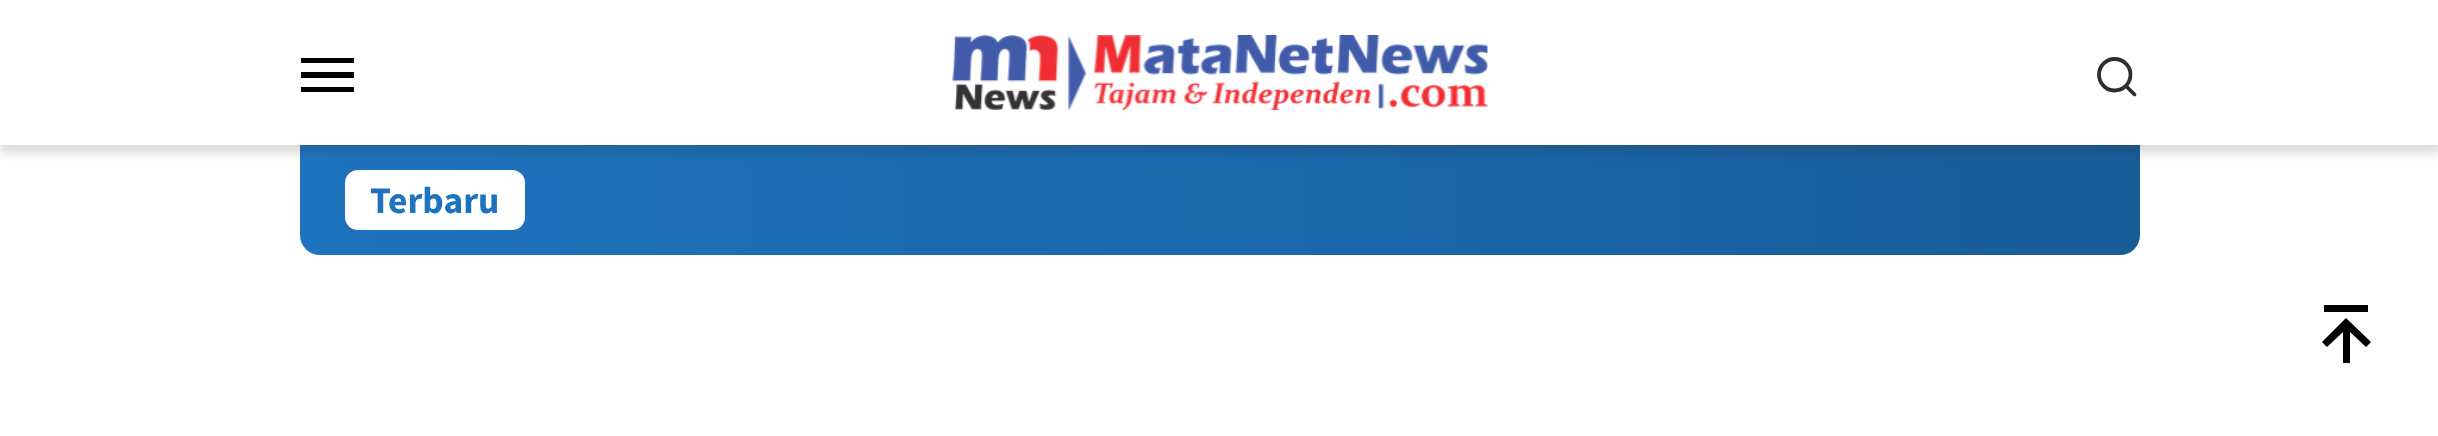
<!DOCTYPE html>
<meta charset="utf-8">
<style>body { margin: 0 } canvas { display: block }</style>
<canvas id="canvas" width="2438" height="436"></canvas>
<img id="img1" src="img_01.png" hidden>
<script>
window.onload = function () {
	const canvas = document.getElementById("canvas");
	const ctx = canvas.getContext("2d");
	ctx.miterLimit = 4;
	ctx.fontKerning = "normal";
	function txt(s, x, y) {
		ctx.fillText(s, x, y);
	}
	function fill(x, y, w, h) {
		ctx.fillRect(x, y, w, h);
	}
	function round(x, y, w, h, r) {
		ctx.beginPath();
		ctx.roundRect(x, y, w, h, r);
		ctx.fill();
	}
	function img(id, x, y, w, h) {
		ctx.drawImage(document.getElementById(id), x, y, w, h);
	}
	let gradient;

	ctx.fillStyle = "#FFFFFF";
	fill(0, 0, 2438, 436);
	ctx.fillStyle = "#1E73BE";
	ctx.beginPath();
	ctx.roundRect(300, 145, 1840, 110, [0, 0, 20, 20]);
	ctx.fill();
	gradient = ctx.createLinearGradient(300, 200, 2140, 200);
	gradient.addColorStop(0, "rgba(0, 0, 0, 0)");
	gradient.addColorStop(1, "rgba(0, 0, 0, 0.2)");
	ctx.fillStyle = gradient;
	ctx.beginPath();
	ctx.roundRect(300, 145, 1840, 110, [0, 0, 20, 20]);
	ctx.fill();
	ctx.fillStyle = "rgba(52, 52, 52, 0.18)";
	ctx.filter = "blur(5px)";
	ctx.beginPath();
	ctx.rect(0, 8, 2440, 145);
	ctx.fill();
	ctx.filter = "none";
	ctx.fillStyle = "#FFFFFF";
	fill(0, 1, 2438, 144);
	ctx.fillStyle = "#000000";
	ctx.beginPath();
	ctx.moveTo(301, 58);
	ctx.lineTo(354, 58);
	ctx.lineTo(354, 63);
	ctx.lineTo(301, 63);
	ctx.lineTo(301, 58);
	ctx.moveTo(301, 72);
	ctx.lineTo(354, 72);
	ctx.lineTo(354, 78);
	ctx.lineTo(301, 78);
	ctx.lineTo(301, 72);
	ctx.moveTo(301, 87);
	ctx.lineTo(354, 87);
	ctx.lineTo(354, 92);
	ctx.lineTo(301, 92);
	ctx.closePath();
	ctx.fill();
	img("img1", 952, 35, 536, 75);
	ctx.beginPath();
	ctx.moveTo(2134.5, 94.5);
	ctx.lineTo(2126, 86);
	ctx.moveTo(2130.5, 74.5);
	ctx.bezierCurveTo(2130.5, 83.5, 2123.5, 90.5, 2114.5, 90.5);
	ctx.bezierCurveTo(2106, 90.5, 2099, 83.5, 2099, 74.5);
	ctx.bezierCurveTo(2099, 66, 2106, 59, 2114.5, 59);
	ctx.bezierCurveTo(2123.5, 59, 2130.5, 66, 2130.5, 74.5);
	ctx.closePath();
	ctx.strokeStyle = "#2E2E2E";
	ctx.lineWidth = 3.8;
	ctx.lineCap = "round";
	ctx.stroke();
	ctx.fillStyle = "#FFFFFF";
	round(345, 170, 180, 60, 13);
	ctx.fillStyle = "#000000";
	ctx.beginPath();
	ctx.moveTo(2324, 305);
	ctx.lineTo(2368, 305);
	ctx.lineTo(2368, 312);
	ctx.lineTo(2324, 312);
	ctx.closePath();
	ctx.moveTo(2327, 347);
	ctx.lineTo(2343, 332);
	ctx.lineTo(2343, 363);
	ctx.lineTo(2350, 363);
	ctx.lineTo(2350, 332);
	ctx.lineTo(2366, 347);
	ctx.lineTo(2371, 342);
	ctx.lineTo(2346, 318);
	ctx.lineTo(2322, 342);
	ctx.closePath();
	ctx.fill();
	ctx.font = "bold 37.5px Source Sans Pro";
	ctx.fillStyle = "#1E73BE";
	txt("Terbaru", 370, 213);
};
</script>
